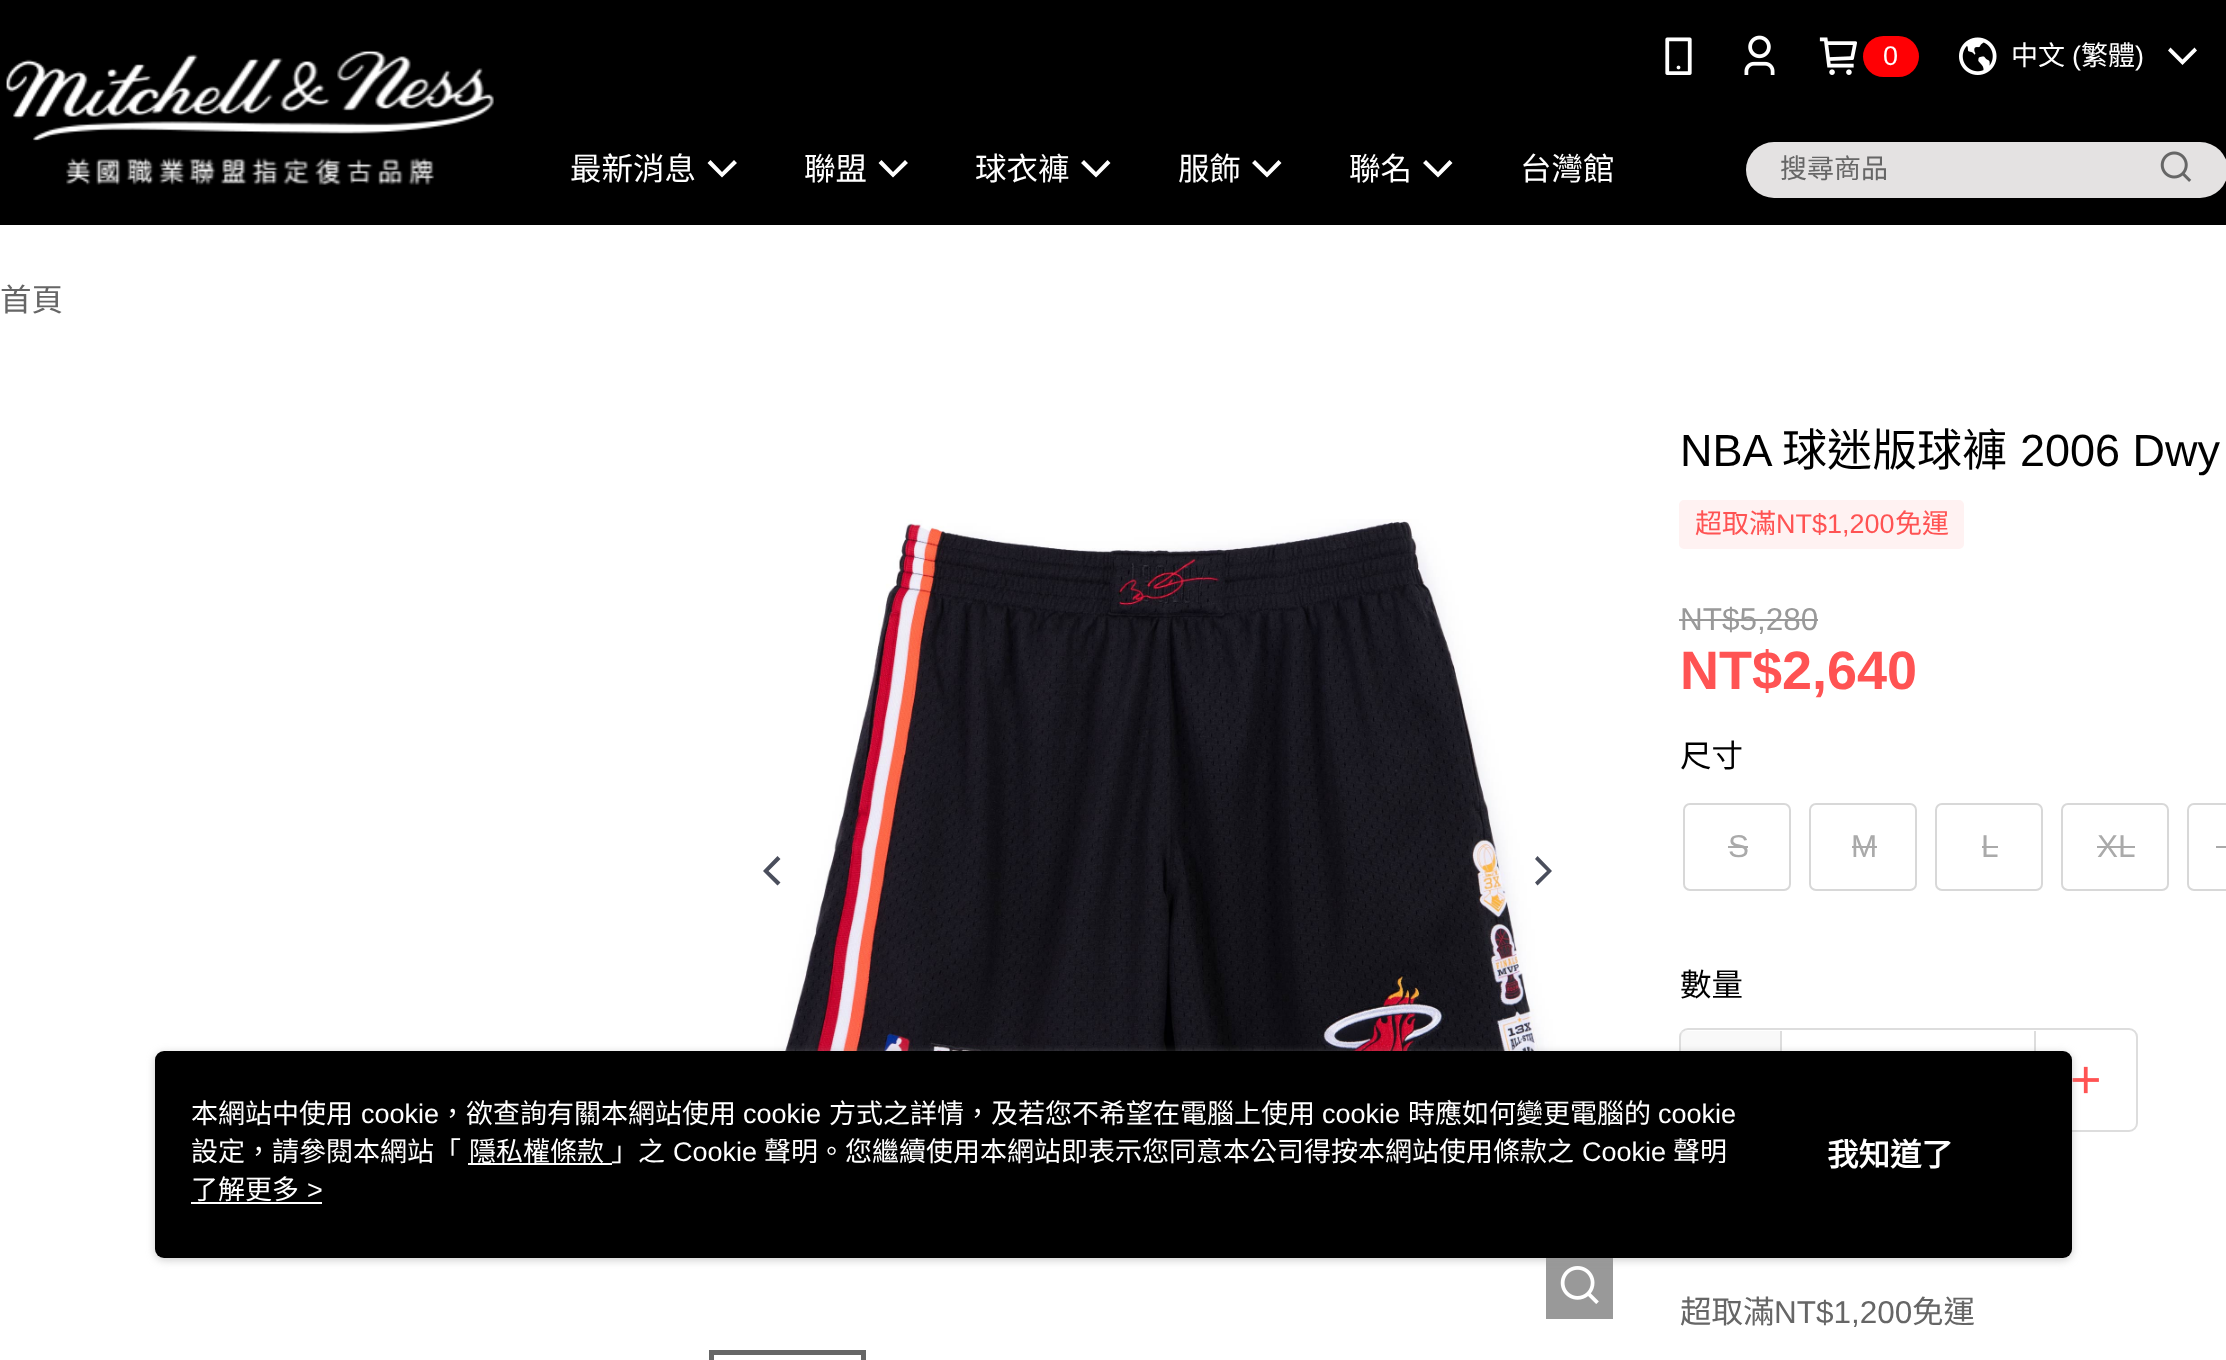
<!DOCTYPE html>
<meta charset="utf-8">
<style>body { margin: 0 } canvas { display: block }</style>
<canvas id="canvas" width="2226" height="1360"></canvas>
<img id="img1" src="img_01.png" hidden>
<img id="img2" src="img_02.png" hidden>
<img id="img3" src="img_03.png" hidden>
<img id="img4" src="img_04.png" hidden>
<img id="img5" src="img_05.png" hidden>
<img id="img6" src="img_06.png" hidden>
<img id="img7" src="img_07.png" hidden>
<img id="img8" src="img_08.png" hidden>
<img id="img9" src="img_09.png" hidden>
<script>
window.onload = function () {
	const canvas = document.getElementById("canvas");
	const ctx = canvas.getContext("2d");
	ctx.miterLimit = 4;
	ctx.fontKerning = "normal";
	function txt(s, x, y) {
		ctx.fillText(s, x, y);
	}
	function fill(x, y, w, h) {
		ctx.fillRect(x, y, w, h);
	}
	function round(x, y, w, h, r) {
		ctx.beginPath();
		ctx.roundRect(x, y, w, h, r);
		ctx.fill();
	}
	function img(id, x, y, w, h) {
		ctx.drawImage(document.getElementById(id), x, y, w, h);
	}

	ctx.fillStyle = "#FFFFFF";
	fill(0, 0, 2226, 1360);
	ctx.fillStyle = "#000000";
	fill(0, 0, 2226, 225);
	img("img1", 6, 50, 488, 135);
	img("img2", 1665, 37, 27, 38);
	img("img3", 1744, 35, 31, 40);
	img("img4", 1819, 37, 38, 38);
	ctx.fillStyle = "#FF0004";
	round(1863, 36, 56, 41, 20.5);
	img("img5", 1959, 37, 38, 38);
	ctx.fillStyle = "#FFFFFF";
	ctx.beginPath();
	ctx.moveTo(2170.5, 47.5);
	ctx.lineTo(2168, 50.5);
	ctx.lineTo(2182.5, 65);
	ctx.lineTo(2197, 50.5);
	ctx.lineTo(2194.5, 47.5);
	ctx.lineTo(2182.5, 59.5);
	ctx.closePath();
	ctx.fill();
	ctx.beginPath();
	ctx.moveTo(710.5, 160);
	ctx.lineTo(707.5, 163);
	ctx.lineTo(722, 177.5);
	ctx.lineTo(737, 163);
	ctx.lineTo(734, 160);
	ctx.lineTo(722, 172);
	ctx.closePath();
	ctx.fill();
	ctx.beginPath();
	ctx.moveTo(881.5, 160);
	ctx.lineTo(878.5, 163);
	ctx.lineTo(893, 177.5);
	ctx.lineTo(908, 163);
	ctx.lineTo(905, 160);
	ctx.lineTo(893, 172);
	ctx.closePath();
	ctx.fill();
	ctx.beginPath();
	ctx.moveTo(1084, 160);
	ctx.lineTo(1081, 163);
	ctx.lineTo(1096, 177.5);
	ctx.lineTo(1110.5, 163);
	ctx.lineTo(1107.5, 160);
	ctx.lineTo(1096, 172);
	ctx.closePath();
	ctx.fill();
	ctx.beginPath();
	ctx.moveTo(1255, 160);
	ctx.lineTo(1252, 163);
	ctx.lineTo(1267, 177.5);
	ctx.lineTo(1281.5, 163);
	ctx.lineTo(1278.5, 160);
	ctx.lineTo(1267, 172);
	ctx.closePath();
	ctx.fill();
	ctx.beginPath();
	ctx.moveTo(1426, 160);
	ctx.lineTo(1423, 163);
	ctx.lineTo(1438, 177.5);
	ctx.lineTo(1452.5, 163);
	ctx.lineTo(1449.5, 160);
	ctx.lineTo(1438, 172);
	ctx.closePath();
	ctx.fill();
	ctx.fillStyle = "#E4E2E2";
	round(1746, 142, 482, 56, 28);
	img("img6", 2160, 151, 32, 31);
	img("img7", 754, 519, 818, 532);
	ctx.fillStyle = "#999999";
	fill(1546, 1258, 67, 61);
	img("img8", 1560, 1266, 39, 38);
	ctx.fillStyle = "#4A4E5C";
	ctx.beginPath();
	ctx.moveTo(780.5, 859);
	ctx.lineTo(777.5, 856);
	ctx.lineTo(763, 871);
	ctx.lineTo(777.5, 885.5);
	ctx.lineTo(780.5, 882.5);
	ctx.lineTo(768.5, 871);
	ctx.closePath();
	ctx.fill();
	ctx.beginPath();
	ctx.moveTo(1535, 882.5);
	ctx.lineTo(1537.5, 885.5);
	ctx.lineTo(1552, 871);
	ctx.lineTo(1537.5, 856);
	ctx.lineTo(1535, 859);
	ctx.lineTo(1547, 871);
	ctx.closePath();
	ctx.fill();
	ctx.strokeStyle = "#666666";
	ctx.lineWidth = 5;
	ctx.strokeRect(711.5, 1352.5, 152, 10);
	ctx.fillStyle = "#FFF2F2";
	ctx.beginPath();
	ctx.roundRect(1680, 501, 283, 47, 4);
	ctx.fill();
	ctx.strokeStyle = "#FFF2F2";
	ctx.lineWidth = 2;
	ctx.stroke();
	ctx.fillStyle = "#999999";
	fill(1679, 619, 139, 2);
	ctx.beginPath();
	ctx.roundRect(1684, 804, 106, 86, 6);
	ctx.strokeStyle = "#D8D8D8";
	ctx.stroke();
	ctx.fillStyle = "#AAAAAA";
	fill(1728, 846, 20, 2);
	ctx.beginPath();
	ctx.roundRect(1810, 804, 106, 86, 6);
	ctx.stroke();
	fill(1852, 846, 25, 2);
	ctx.beginPath();
	ctx.roundRect(1936, 804, 106, 86, 6);
	ctx.stroke();
	fill(1982, 846, 16, 2);
	ctx.beginPath();
	ctx.roundRect(2062, 804, 106, 86, 6);
	ctx.stroke();
	fill(2097, 846, 38, 2);
	ctx.beginPath();
	ctx.roundRect(2188, 804, 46, 86, 6);
	ctx.stroke();
	fill(2216, 846, 10, 2);
	ctx.beginPath();
	ctx.roundRect(1680, 1029, 457, 102, 8);
	ctx.strokeStyle = "#DDDDDD";
	ctx.stroke();
	ctx.fillStyle = "rgba(241, 241, 241, 0.4)";
	fill(1681, 1031, 99, 20);
	ctx.fillStyle = "#DDDDDD";
	fill(2034, 1031, 2, 20);
	fill(1780, 1031, 2, 20);
	img("img9", 2072, 1066, 27, 28);
	ctx.fillStyle = "rgba(151, 151, 151, 0.5)";
	ctx.filter = "blur(4.5px)";
	ctx.beginPath();
	ctx.roundRect(155, 1053, 1917, 207, 9);
	ctx.fill();
	ctx.filter = "none";
	ctx.fillStyle = "#000000";
	round(155, 1051, 1917, 207, 9);
	ctx.fillStyle = "#FFFFFF";
	fill(468, 1163, 144, 2);
	fill(191, 1202, 131, 2);
	ctx.font = "27px Liberation Sans";
	txt("0", 1883, 65);
	ctx.font = "27px Noto Sans CJK TC";
	txt("中文", 2011, 65);
	ctx.font = "27px Liberation Sans";
	txt("(", 2072, 65);
	ctx.font = "27px Noto Sans CJK TC";
	txt("繁體", 2081, 65);
	ctx.font = "27px Liberation Sans";
	txt(")", 2135, 65);
	ctx.font = "31.5px Noto Sans CJK TC";
	txt("最新消息", 570, 180);
	txt("聯盟", 804, 180);
	txt("球衣褲", 975, 180);
	txt("服飾", 1178, 180);
	txt("聯名", 1349, 180);
	txt("台灣館", 1520, 180);
	ctx.font = "27px Noto Sans CJK TC";
	ctx.fillStyle = "#666666";
	txt("搜尋商品", 1780, 178);
	ctx.font = "31.5px Noto Sans CJK TC";
	txt("首頁", 0, 311);
	ctx.font = "45px Liberation Sans";
	ctx.fillStyle = "#000000";
	txt("NBA", 1680, 466);
	ctx.font = "45px Noto Sans CJK TC";
	txt("球迷版球褲", 1782, 466);
	ctx.font = "45px Liberation Sans";
	txt("2006 Dwy", 2020, 466);
	ctx.font = "27px Noto Sans CJK TC";
	ctx.fillStyle = "#FF5353";
	txt("超取滿", 1695, 533);
	ctx.font = "27px Liberation Sans";
	txt("NT$1,200", 1776, 533);
	ctx.font = "27px Noto Sans CJK TC";
	txt("免運", 1895, 533);
	ctx.font = "31.5px Liberation Sans";
	ctx.fillStyle = "#999999";
	txt("NT$5,280", 1680, 630);
	ctx.font = "bold 54px Liberation Sans";
	ctx.fillStyle = "#FF5353";
	txt("NT$2,640", 1680, 689);
	ctx.font = "31.5px Noto Sans CJK TC";
	ctx.fillStyle = "#000000";
	txt("尺寸", 1680, 767);
	ctx.font = "31.5px Liberation Sans";
	ctx.fillStyle = "#AAAAAA";
	txt("S", 1728, 857);
	txt("M", 1851, 857);
	txt("L", 1981, 857);
	txt("XL", 2097, 857);
	ctx.font = "31.5px Noto Sans CJK TC";
	ctx.fillStyle = "#000000";
	txt("數量", 1680, 996);
	ctx.fillStyle = "#666666";
	txt("超取滿", 1680, 1323);
	ctx.font = "31.5px Liberation Sans";
	txt("NT$1,200", 1774, 1323);
	ctx.font = "31.5px Noto Sans CJK TC";
	txt("免運", 1912, 1323);
	ctx.font = "27px Noto Sans CJK TC";
	ctx.fillStyle = "#FFFFFF";
	txt("本網站中使用", 191, 1123);
	ctx.font = "27px Liberation Sans";
	txt("cookie", 361, 1123);
	ctx.font = "27px Noto Sans CJK TC";
	txt("，欲查詢有關本網站使用", 439, 1123);
	ctx.font = "27px Liberation Sans";
	txt("cookie", 743, 1123);
	ctx.font = "27px Noto Sans CJK TC";
	txt("方式之詳情，及若您不希望在電腦上使用", 829, 1123);
	ctx.font = "27px Liberation Sans";
	txt("cookie", 1322, 1123);
	ctx.font = "27px Noto Sans CJK TC";
	txt("時應如何變更電腦的", 1408, 1123);
	ctx.font = "27px Liberation Sans";
	txt("cookie", 1658, 1123);
	ctx.font = "27px Noto Sans CJK TC";
	txt("設定，請參閱本網站「", 191, 1161);
	txt("隱私權條款", 469, 1161);
	txt("」之", 611, 1161);
	ctx.font = "27px Liberation Sans";
	txt("Cookie", 673, 1161);
	ctx.font = "27px Noto Sans CJK TC";
	txt("聲明。您繼續使用本網站即表示您同意本公司得按本網站使用條款之", 764, 1161);
	ctx.font = "27px Liberation Sans";
	txt("Cookie", 1582, 1161);
	ctx.font = "27px Noto Sans CJK TC";
	txt("聲明", 1673, 1161);
	txt("了解更多", 191, 1199);
	ctx.font = "27px Liberation Sans";
	txt(">", 307, 1199);
	ctx.font = "bold 31.5px Noto Sans CJK TC";
	txt("我知道了", 1827, 1166);
};
</script>
